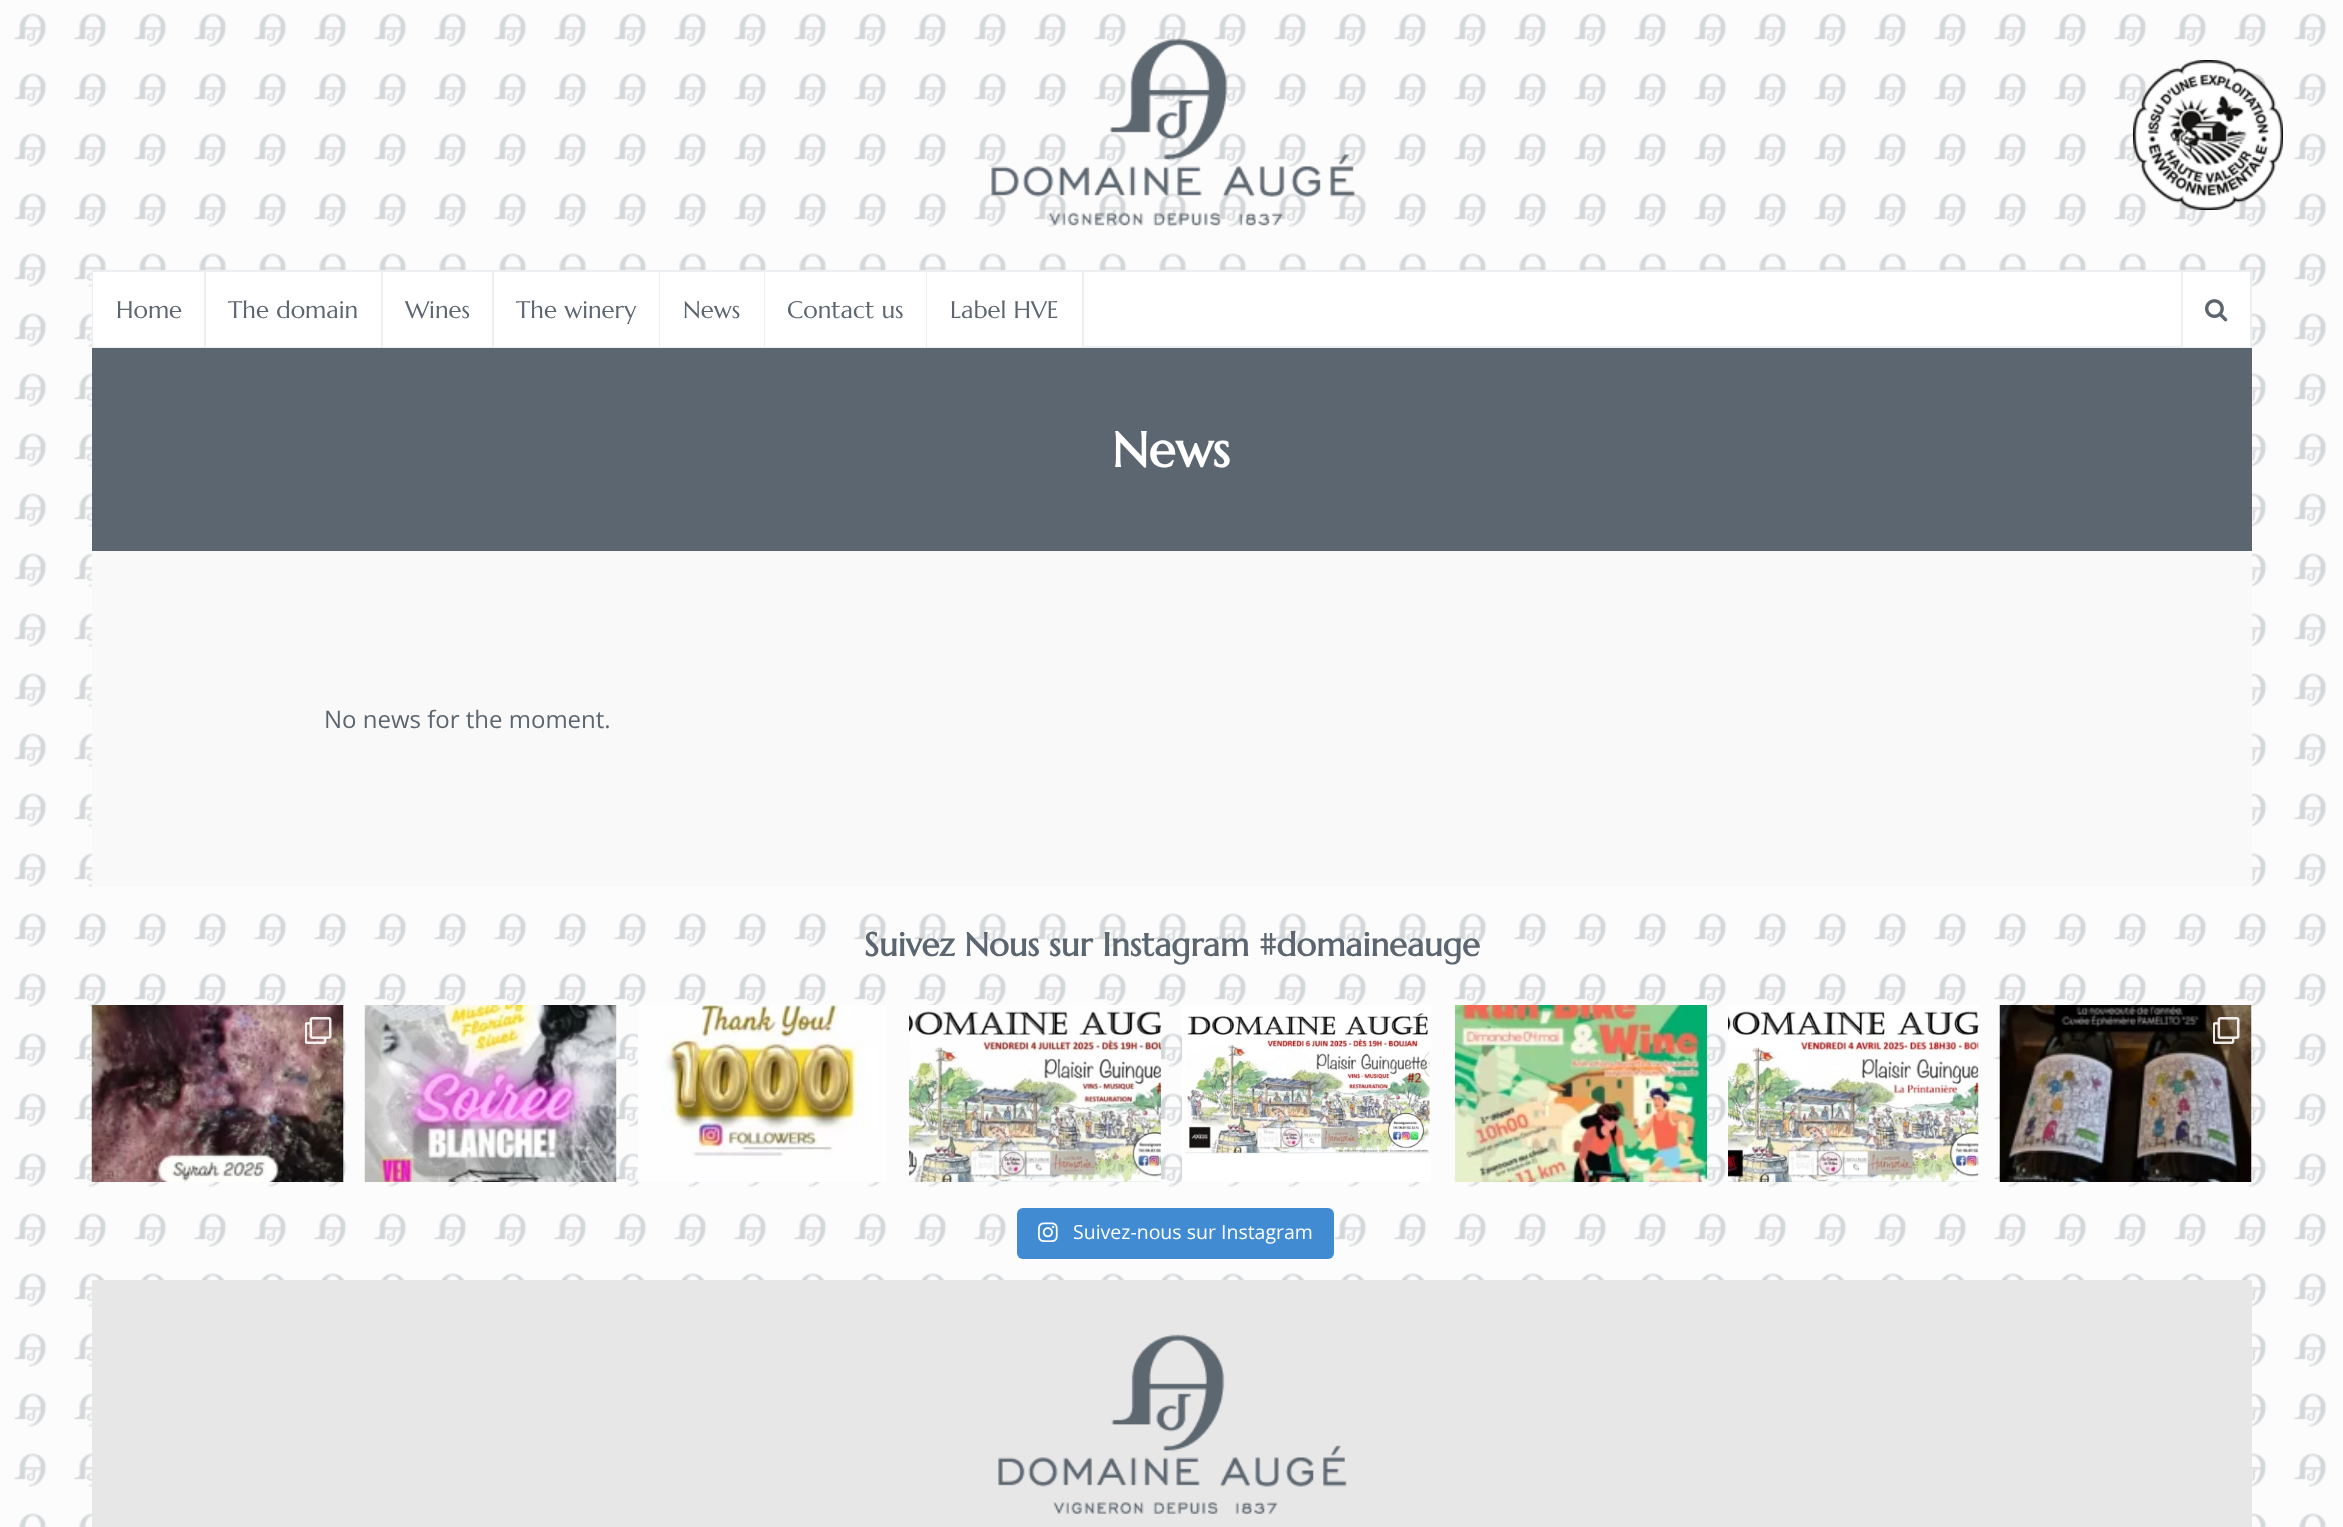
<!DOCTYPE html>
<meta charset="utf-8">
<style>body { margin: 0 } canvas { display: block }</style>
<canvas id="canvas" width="2343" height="1527"></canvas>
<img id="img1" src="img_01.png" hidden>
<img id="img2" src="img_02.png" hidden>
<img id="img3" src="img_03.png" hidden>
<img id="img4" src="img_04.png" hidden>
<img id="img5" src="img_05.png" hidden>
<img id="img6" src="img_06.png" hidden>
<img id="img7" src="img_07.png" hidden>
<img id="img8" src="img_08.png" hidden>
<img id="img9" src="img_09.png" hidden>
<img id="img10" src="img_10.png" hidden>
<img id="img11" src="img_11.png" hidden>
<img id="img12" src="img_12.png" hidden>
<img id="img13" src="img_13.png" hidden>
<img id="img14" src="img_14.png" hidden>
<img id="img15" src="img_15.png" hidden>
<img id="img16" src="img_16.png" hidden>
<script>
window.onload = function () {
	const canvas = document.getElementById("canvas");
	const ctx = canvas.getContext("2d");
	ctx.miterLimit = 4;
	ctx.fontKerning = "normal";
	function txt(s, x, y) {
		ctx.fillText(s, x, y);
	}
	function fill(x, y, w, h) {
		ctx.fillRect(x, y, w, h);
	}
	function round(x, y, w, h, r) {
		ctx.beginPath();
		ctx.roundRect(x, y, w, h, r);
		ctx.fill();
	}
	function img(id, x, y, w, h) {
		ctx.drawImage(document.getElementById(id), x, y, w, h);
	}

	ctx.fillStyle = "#FCFCFC";
	fill(0, 0, 2343, 1527);
	img("img1", 14, 13, 2313, 1514);
	img("img2", 991, 38, 364, 188);
	img("img3", 2133, 60, 150, 150);
	ctx.fillStyle = "#FFFFFF";
	fill(1084, 272, 1097, 74);
	ctx.strokeStyle = "#ECEFF1";
	ctx.lineWidth = 2;
	ctx.strokeRect(93, 271, 2158, 76);
	fill(93, 272, 111, 75);
	ctx.fillStyle = "#ECEFF1";
	fill(204, 272, 2, 75);
	ctx.fillStyle = "#FFFFFF";
	fill(206, 272, 175, 75);
	ctx.fillStyle = "#ECEFF1";
	fill(381, 272, 2, 75);
	ctx.fillStyle = "#FFFFFF";
	fill(383, 272, 109, 75);
	ctx.fillStyle = "#ECEFF1";
	fill(492, 272, 2, 75);
	ctx.fillStyle = "#FFFFFF";
	fill(494, 272, 165, 75);
	ctx.fillStyle = "#ECEFF1";
	fill(659, 272, 1, 75);
	ctx.fillStyle = "#FFFFFF";
	fill(660, 272, 104, 75);
	ctx.fillStyle = "#ECEFF1";
	fill(764, 272, 1, 75);
	ctx.fillStyle = "#FFFFFF";
	fill(765, 272, 161, 75);
	ctx.fillStyle = "#ECEFF1";
	fill(926, 272, 1, 75);
	ctx.fillStyle = "#FFFFFF";
	fill(927, 272, 155, 75);
	ctx.fillStyle = "#ECEFF1";
	fill(1082, 272, 2, 75);
	ctx.fillStyle = "#FFFFFF";
	fill(2183, 272, 67, 75);
	ctx.fillStyle = "#ECEFF1";
	fill(2181, 272, 2, 75);
	img("img4", 2205, 299, 23, 23);
	ctx.fillStyle = "#5C6670";
	fill(92, 348, 2160, 203);
	ctx.fillStyle = "#F9F9F9";
	fill(92, 551, 2160, 336);
	img("img5", 91, 1005, 253, 177);
	img("img6", 305, 1017, 27, 27);
	img("img7", 364, 1005, 253, 177);
	img("img8", 637, 1005, 250, 177);
	img("img9", 909, 1005, 252, 177);
	img("img10", 1182, 1005, 249, 177);
	img("img11", 1455, 1005, 252, 177);
	img("img12", 1728, 1005, 251, 177);
	img("img13", 1999, 1005, 253, 177);
	img("img14", 2213, 1017, 27, 27);
	ctx.fillStyle = "#408BD1";
	round(1017, 1208, 317, 51, 6);
	img("img15", 1038, 1222, 20, 20);
	ctx.fillStyle = "#E7E7E7";
	fill(92, 1280, 2160, 247);
	img("img16", 998, 1334, 349, 180);
	ctx.font = "24px Marcellus";
	ctx.fillStyle = "#5C6670";
	txt("Home", 116, 318);
	txt("The domain", 228, 318);
	txt("Wines", 405, 318);
	txt("The winery", 516, 318);
	txt("News", 683, 318);
	txt("Contact us", 787, 318);
	txt("Label HVE", 950, 318);
	ctx.font = "bold 49.5px Marcellus";
	ctx.fillStyle = "#FFFFFF";
	txt("News", 1112, 467);
	ctx.font = "24px Open Sans";
	ctx.fillStyle = "#5C6670";
	txt("No news for the moment.", 324, 728);
	ctx.font = "bold 33px Marcellus";
	txt("Suivez Nous sur Instagram #domaineauge", 864, 956);
	ctx.font = "19.5px Open Sans";
	ctx.fillStyle = "#FFFFFF";
	txt("Suivez-nous sur Instagram", 1073, 1239);
};
</script>
